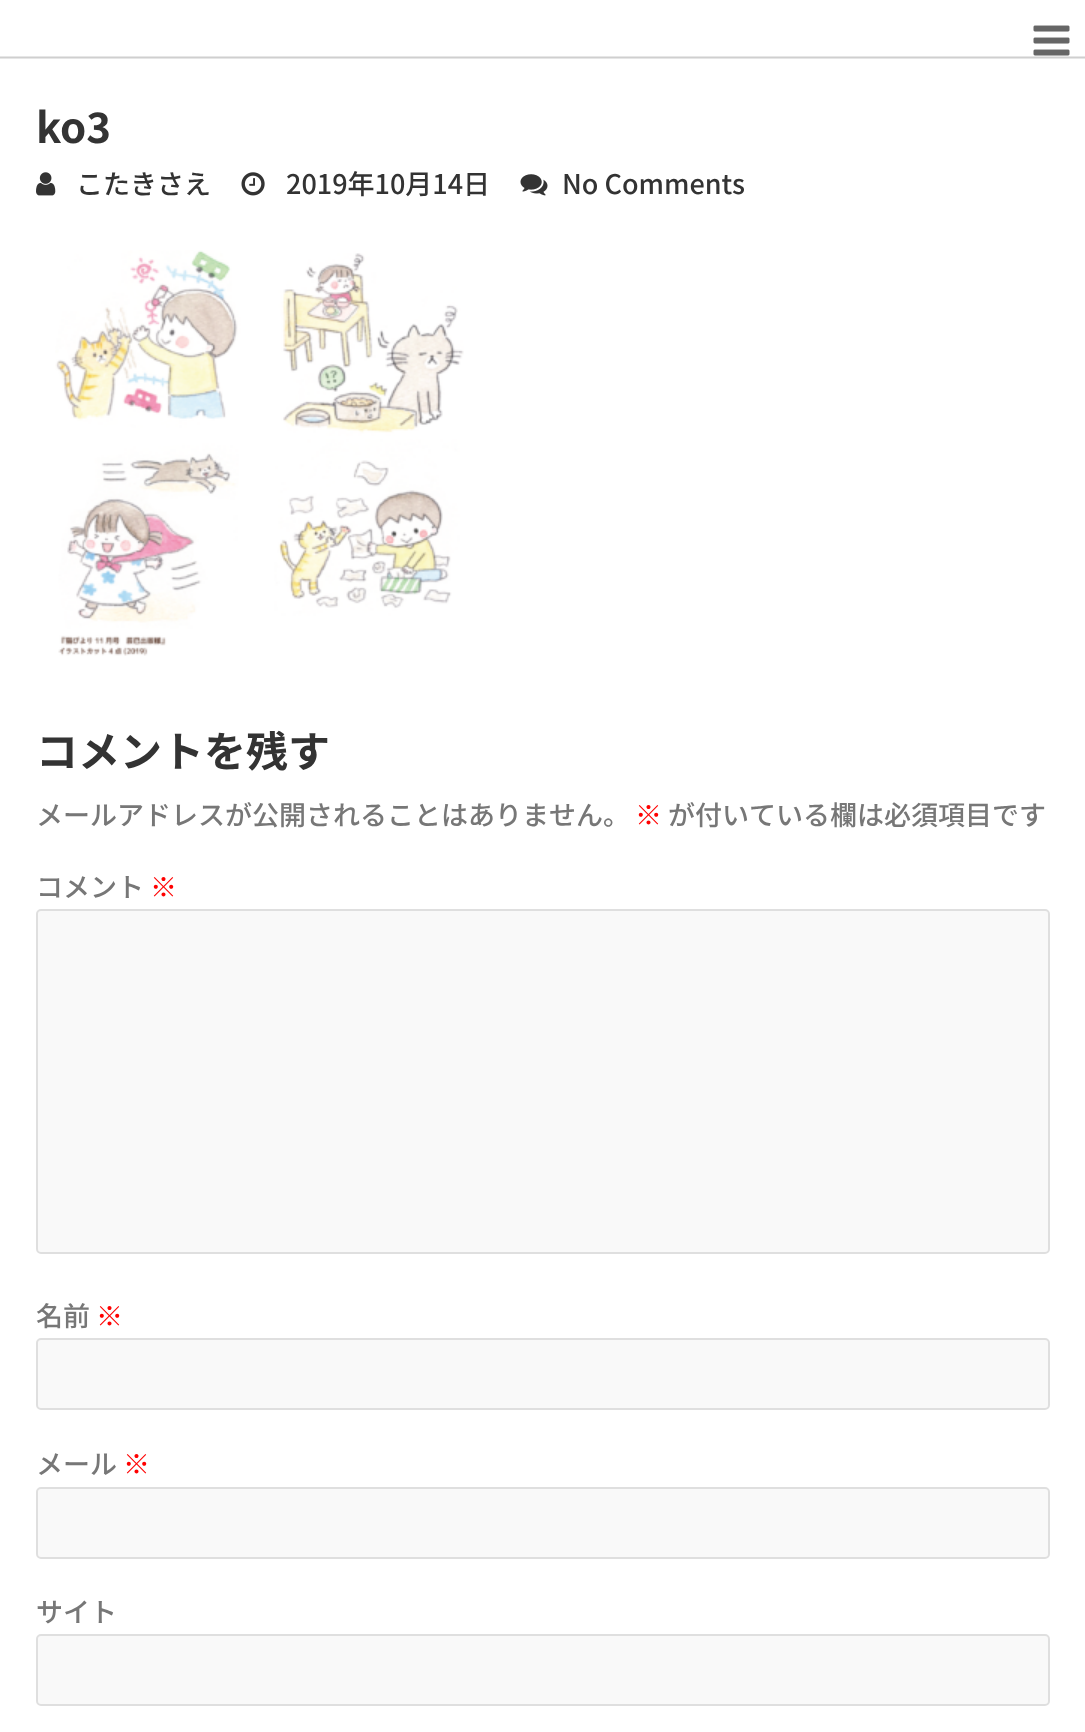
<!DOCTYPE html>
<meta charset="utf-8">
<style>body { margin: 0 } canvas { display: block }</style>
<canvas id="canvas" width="1085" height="1732"></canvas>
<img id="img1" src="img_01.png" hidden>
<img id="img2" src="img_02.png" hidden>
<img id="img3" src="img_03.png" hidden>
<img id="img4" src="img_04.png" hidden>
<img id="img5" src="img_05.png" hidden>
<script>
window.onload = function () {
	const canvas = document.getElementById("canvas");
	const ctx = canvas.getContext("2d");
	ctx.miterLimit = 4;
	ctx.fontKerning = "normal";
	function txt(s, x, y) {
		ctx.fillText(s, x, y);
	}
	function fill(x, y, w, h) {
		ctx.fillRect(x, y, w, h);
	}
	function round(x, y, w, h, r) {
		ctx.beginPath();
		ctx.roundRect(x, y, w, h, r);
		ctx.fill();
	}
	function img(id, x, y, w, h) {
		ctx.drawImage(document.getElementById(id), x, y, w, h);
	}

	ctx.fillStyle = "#FFFFFF";
	fill(0, 0, 1085, 1732);
	ctx.fillStyle = "#E6E6E6";
	fill(0, 58, 1085, 1);
	img("img1", 1033, 25, 37, 31);
	fill(0, 56, 1085, 1);
	ctx.fillStyle = "#CFCFCF";
	fill(0, 57, 1085, 1);
	img("img2", 36, 172, 20, 24);
	img("img3", 241, 172, 24, 24);
	img("img4", 520, 174, 28, 22);
	img("img5", 55, 250, 409, 406);
	ctx.fillStyle = "#F9F9F9";
	round(36, 909, 1014, 345, 5);
	ctx.beginPath();
	ctx.roundRect(37, 910, 1012, 343, 4);
	ctx.strokeStyle = "rgba(0, 0, 0, 0.1)";
	ctx.lineWidth = 2;
	ctx.stroke();
	round(36, 1338, 1014, 72, 5);
	ctx.beginPath();
	ctx.roundRect(37, 1339, 1012, 70, 4);
	ctx.stroke();
	round(36, 1487, 1014, 72, 5);
	ctx.beginPath();
	ctx.roundRect(37, 1488, 1012, 70, 4);
	ctx.stroke();
	round(36, 1634, 1014, 72, 5);
	ctx.beginPath();
	ctx.roundRect(37, 1635, 1012, 70, 4);
	ctx.stroke();
	ctx.font = "bold 42px Noto Sans JP";
	ctx.fillStyle = "#333333";
	txt("ko3", 36, 143);
	ctx.font = "500 27px Noto Sans JP";
	txt("こたきさえ", 76, 194);
	txt("2019年10月14日", 286, 194);
	txt("No Comments", 562, 194);
	ctx.font = "bold 42px Noto Sans JP";
	txt("コメントを残す", 36, 767);
	ctx.font = "500 27px Noto Sans JP";
	ctx.fillStyle = "#777777";
	txt("メールアドレスが公開されることはありません。", 36, 825);
	ctx.fillStyle = "#FF0000";
	txt("※", 635, 825);
	ctx.fillStyle = "#777777";
	txt("が付いている欄は必須項目です", 668, 825);
	txt("コメント", 36, 897);
	ctx.fillStyle = "#FF0000";
	txt("※", 150, 897);
	ctx.fillStyle = "#777777";
	txt("名前", 36, 1326);
	ctx.fillStyle = "#FF0000";
	txt("※", 96, 1326);
	ctx.fillStyle = "#777777";
	txt("メール", 36, 1474);
	ctx.fillStyle = "#FF0000";
	txt("※", 123, 1474);
	ctx.fillStyle = "#777777";
	txt("サイト", 36, 1622);
};
</script>
